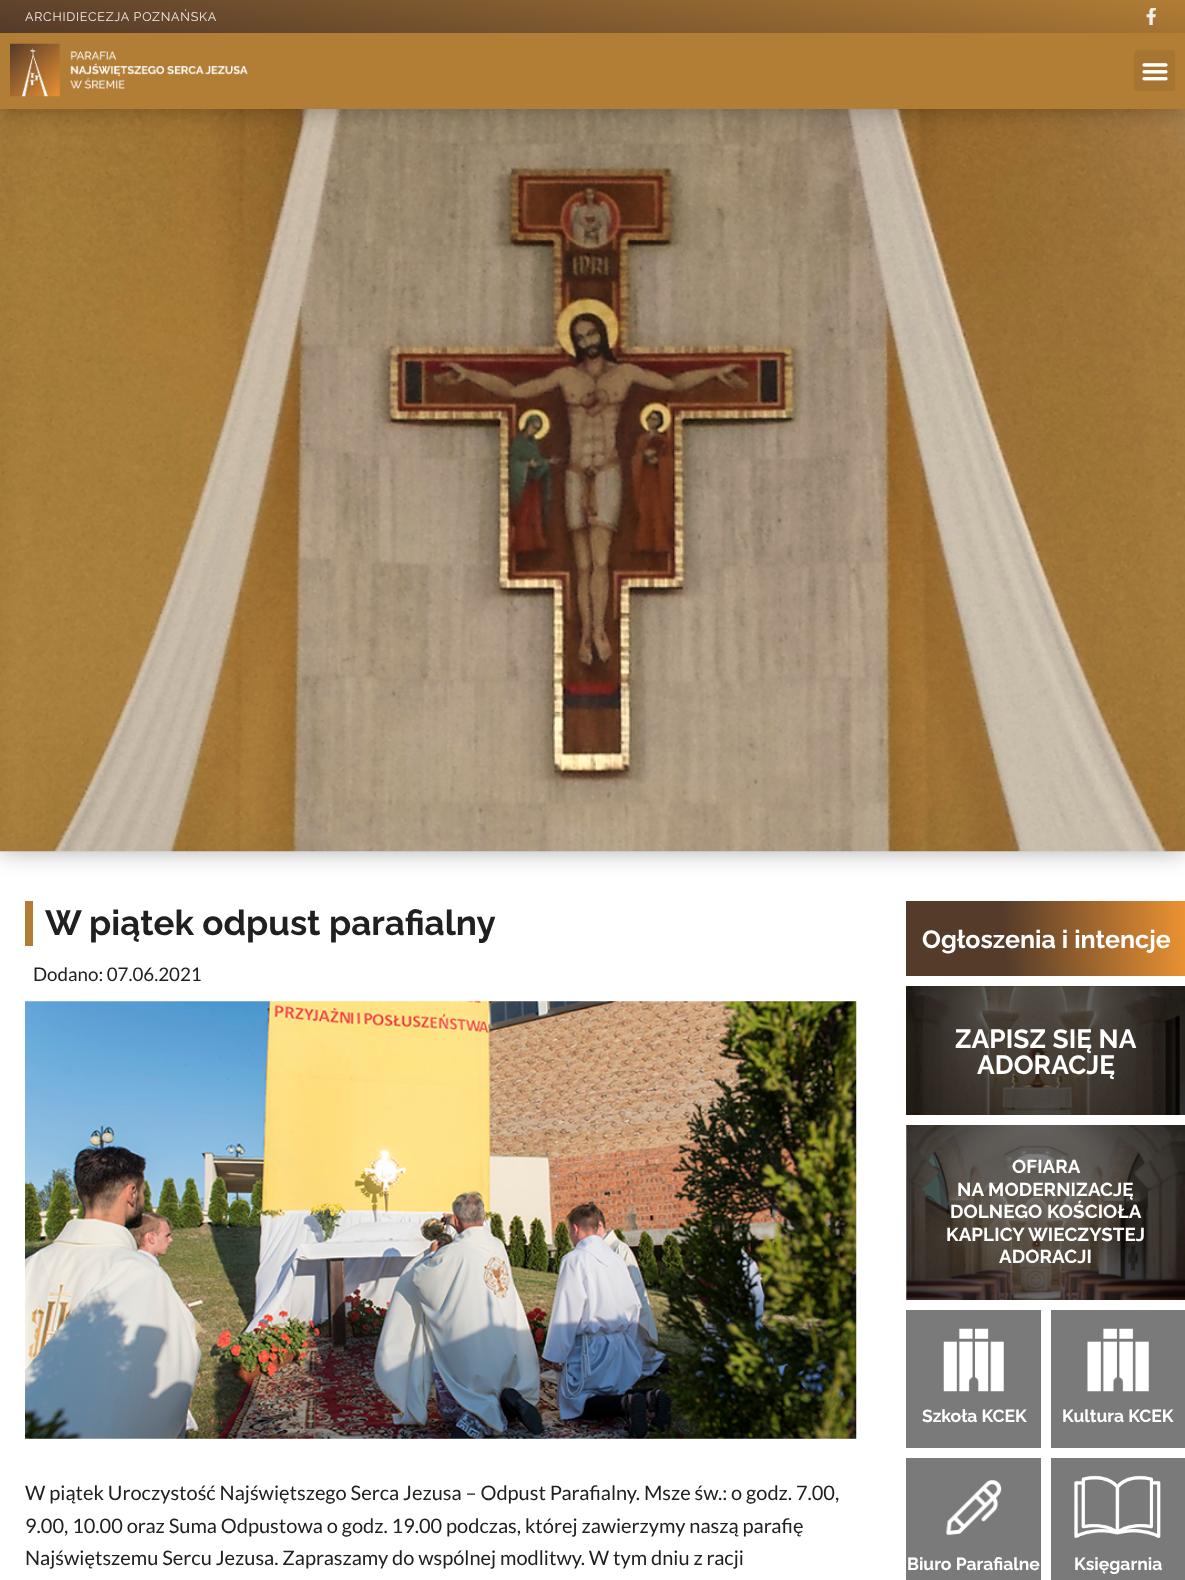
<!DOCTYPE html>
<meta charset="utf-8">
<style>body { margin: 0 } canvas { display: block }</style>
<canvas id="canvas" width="1185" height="1580"></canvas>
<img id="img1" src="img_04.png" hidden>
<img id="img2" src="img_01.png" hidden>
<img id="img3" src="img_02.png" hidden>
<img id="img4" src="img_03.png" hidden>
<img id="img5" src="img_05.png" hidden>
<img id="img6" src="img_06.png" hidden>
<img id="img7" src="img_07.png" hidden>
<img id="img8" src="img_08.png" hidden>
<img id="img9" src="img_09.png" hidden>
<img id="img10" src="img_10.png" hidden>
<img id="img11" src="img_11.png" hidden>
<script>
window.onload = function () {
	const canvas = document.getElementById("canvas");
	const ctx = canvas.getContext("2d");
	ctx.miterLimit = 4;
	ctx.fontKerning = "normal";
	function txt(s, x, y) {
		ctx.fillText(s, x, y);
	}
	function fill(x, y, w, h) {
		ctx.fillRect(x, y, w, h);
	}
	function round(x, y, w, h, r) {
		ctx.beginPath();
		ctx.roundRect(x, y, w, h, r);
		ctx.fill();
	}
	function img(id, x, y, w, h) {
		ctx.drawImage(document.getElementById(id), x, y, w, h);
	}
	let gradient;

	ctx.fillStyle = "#FFFFFF";
	fill(0, 0, 1185, 1580);
	ctx.fillStyle = "rgba(0, 0, 0, 0.33)";
	ctx.filter = "blur(12.5px)";
	ctx.beginPath();
	ctx.rect(0, 109, 1185, 742);
	ctx.fill();
	ctx.filter = "none";
	img("img1", 0, 109, 1185, 743);
	ctx.filter = "blur(12.5px)";
	ctx.beginPath();
	ctx.rect(0, 33, 1185, 76);
	ctx.fill();
	ctx.filter = "none";
	ctx.fillStyle = "#B27D35";
	fill(0, 33, 1185, 76);
	img("img2", 10, 43, 238, 54);
	ctx.fillStyle = "#A77532";
	round(1134, 50, 41, 41, 4);
	img("img3", 1142, 63, 26, 18);
	gradient = ctx.createLinearGradient(572, 133, 613, -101);
	gradient.addColorStop(0, "rgba(81, 55, 38, 0.98)");
	gradient.addColorStop(1, "#B27D35");
	ctx.fillStyle = gradient;
	fill(0, 0, 1185, 33);
	img("img4", 1146, 8, 10, 17);
	ctx.fillStyle = "#B27D35";
	fill(25, 901, 8, 45);
	img("img5", 25, 1001, 832, 438);
	gradient = ctx.createLinearGradient(904, 949, 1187, 929);
	gradient.addColorStop(0.35, "#543B2A");
	gradient.addColorStop(1, "#EC9332");
	ctx.fillStyle = gradient;
	fill(906, 901, 279, 75);
	ctx.fillStyle = "#322C12";
	fill(906, 986, 279, 129);
	img("img6", 906, 986, 279, 129);
	img("img7", 906, 1125, 279, 175);
	ctx.fillStyle = "#7A7A7A";
	fill(906, 1310, 135, 138);
	img("img8", 943, 1328, 61, 64);
	fill(1051, 1310, 134, 138);
	img("img9", 1087, 1328, 62, 64);
	fill(906, 1458, 135, 122);
	img("img10", 946, 1480, 56, 55);
	fill(1051, 1458, 134, 122);
	img("img11", 1074, 1475, 87, 63);
	ctx.letterSpacing = "0.75px";
	ctx.font = "12.5px Raleway";
	ctx.fillStyle = "#EFEEE9";
	txt("ARCHIDIECEZJA POZNAŃSKA", 25, 21);
	ctx.letterSpacing = "0px";
	ctx.font = "bold 35px Raleway";
	ctx.fillStyle = "#202020";
	txt("W piątek odpust parafialny", 45, 935);
	ctx.font = "18.75px Lato";
	txt("Dodano: 07.06.2021", 33, 981);
	ctx.font = "20px Lato";
	txt("W piątek Uroczystość Najświętszego Serca Jezusa – Odpust Parafialny. Msze św.: o godz. 7.00,", 25, 1500);
	txt("9.00, 10.00 oraz Suma Odpustowa o godz. 19.00 podczas, której zawierzymy naszą parafię", 25, 1533);
	txt("Najświętszemu Sercu Jezusa. Zapraszamy do wspólnej modlitwy. W tym dniu z racji", 25, 1565);
	ctx.font = "bold 25px Raleway";
	ctx.fillStyle = "#FFFFFF";
	txt("Ogłoszenia i intencje", 922, 948);
	ctx.letterSpacing = "0.1px";
	ctx.font = "bold 26.25px Raleway";
	txt("ZAPISZ SIĘ NA", 955, 1048);
	txt("ADORACJĘ", 977, 1074);
	ctx.font = "bold 18.75px Raleway";
	txt("OFIARA", 1012, 1173);
	txt("NA MODERNIZACJĘ", 957, 1196);
	txt("DOLNEGO KOŚCIOŁA", 950, 1218);
	txt("KAPLICY WIECZYSTEJ", 946, 1241);
	txt("ADORACJI", 999, 1263);
	ctx.letterSpacing = "0px";
	ctx.font = "bold 17.5px Raleway";
	txt("Szkoła KCEK", 922, 1422);
	txt("Kultura KCEK", 1062, 1422);
	txt("Biuro Parafialne", 907, 1570);
	txt("Księgarnia", 1074, 1570);
};
</script>
